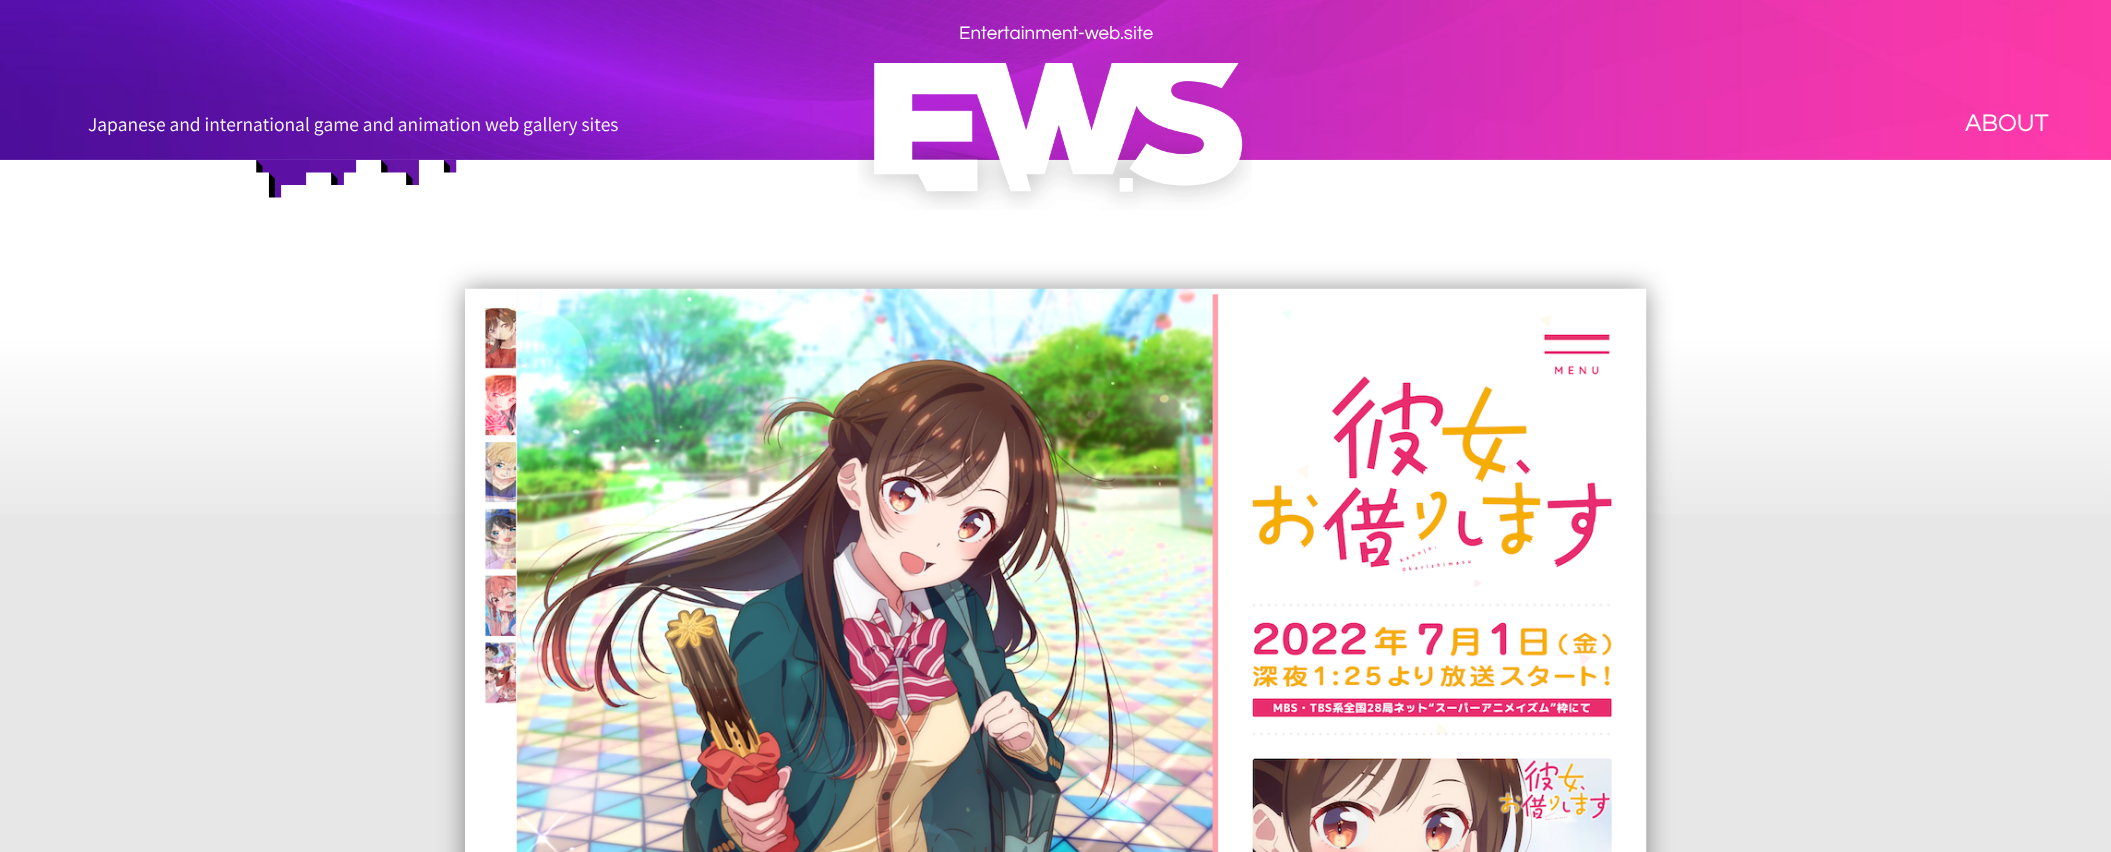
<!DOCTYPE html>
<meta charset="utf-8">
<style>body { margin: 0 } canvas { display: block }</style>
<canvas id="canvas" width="2111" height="852"></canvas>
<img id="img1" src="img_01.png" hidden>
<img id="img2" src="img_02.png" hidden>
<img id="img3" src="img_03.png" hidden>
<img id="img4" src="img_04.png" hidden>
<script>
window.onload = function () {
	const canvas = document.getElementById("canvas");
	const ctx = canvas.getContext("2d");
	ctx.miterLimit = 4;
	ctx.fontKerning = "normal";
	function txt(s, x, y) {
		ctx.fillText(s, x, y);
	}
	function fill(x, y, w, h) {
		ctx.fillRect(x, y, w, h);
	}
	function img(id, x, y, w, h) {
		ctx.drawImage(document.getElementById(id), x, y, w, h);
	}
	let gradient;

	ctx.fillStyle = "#E7E7E7";
	fill(0, 0, 2111, 852);
	img("img1", 0, 0, 2111, 160);
	gradient = ctx.createLinearGradient(1056, 160, 1056, 535);
	gradient.addColorStop(0, "#FFFFFF");
	gradient.addColorStop(0.47, "#FFFFFF");
	gradient.addColorStop(1, "#E7E7E7");
	ctx.fillStyle = gradient;
	fill(0, 160, 2111, 354);
	img("img2", 858, 63, 394, 147);
	img("img3", 256, 160, 201, 38);
	ctx.fillStyle = "rgba(0, 0, 0, 0.44)";
	ctx.filter = "blur(13px)";
	ctx.beginPath();
	ctx.rect(465, 289, 1181, 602);
	ctx.fill();
	ctx.filter = "none";
	img("img4", 465, 288, 1182, 564);
	ctx.font = "18.75px Questrial";
	ctx.fillStyle = "#FFFFFF";
	txt("Entertainment-web.site", 959, 39);
	ctx.font = "300 17.5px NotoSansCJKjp";
	txt("Japanese and international game and animation web gallery sites", 88, 131);
	ctx.font = "25px Questrial";
	txt("ABOUT", 1965, 131);
};
</script>
